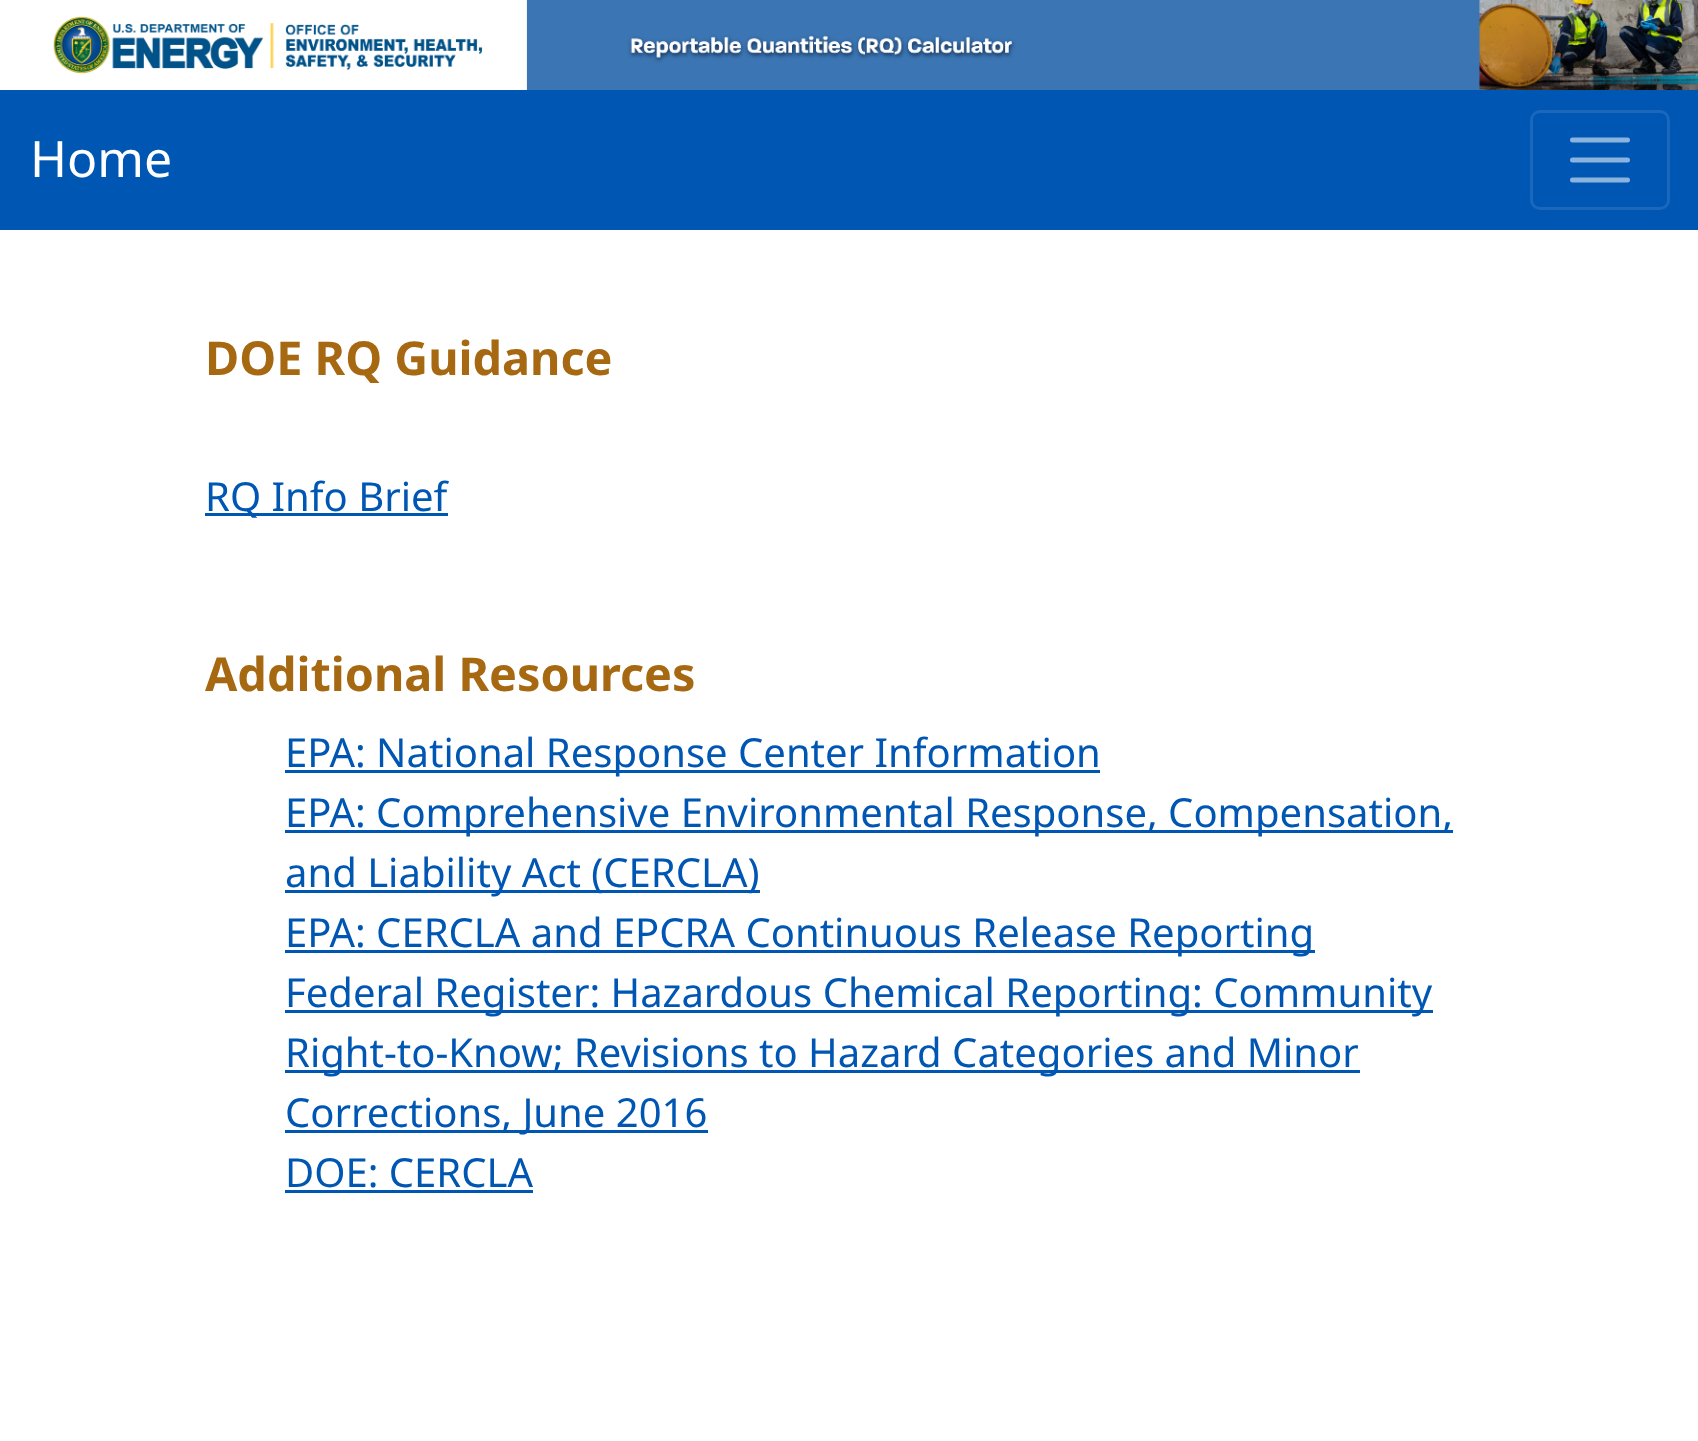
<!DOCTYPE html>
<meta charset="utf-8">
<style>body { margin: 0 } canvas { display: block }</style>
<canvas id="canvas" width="1698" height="1441"></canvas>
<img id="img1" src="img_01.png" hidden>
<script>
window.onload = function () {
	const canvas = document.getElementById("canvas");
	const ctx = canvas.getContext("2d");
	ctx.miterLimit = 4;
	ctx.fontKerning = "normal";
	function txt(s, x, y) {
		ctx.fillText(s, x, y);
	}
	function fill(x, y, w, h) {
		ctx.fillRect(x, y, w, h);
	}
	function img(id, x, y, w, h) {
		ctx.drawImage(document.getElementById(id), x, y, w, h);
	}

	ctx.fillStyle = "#FFFFFF";
	fill(0, 0, 1698, 1441);
	img("img1", 53, 0, 1645, 90);
	ctx.fillStyle = "#0056B3";
	fill(0, 90, 1698, 140);
	ctx.beginPath();
	ctx.roundRect(1531.5, 111.5, 137, 97, 8.5);
	ctx.strokeStyle = "#1A67BB";
	ctx.lineWidth = 3;
	ctx.stroke();
	ctx.beginPath();
	ctx.moveTo(1572.5, 140);
	ctx.lineTo(1627.5, 140);
	ctx.moveTo(1572.5, 160);
	ctx.lineTo(1627.5, 160);
	ctx.moveTo(1572.5, 180);
	ctx.lineTo(1627.5, 180);
	ctx.strokeStyle = "#8CB3DD";
	ctx.lineWidth = 5;
	ctx.lineCap = "round";
	ctx.stroke();
	fill(205, 513, 243, 3);
	fill(285, 770, 815, 3);
	fill(285, 830, 1168, 3);
	fill(285, 890, 475, 3);
	fill(285, 950, 1030, 3);
	fill(285, 1010, 1148, 3);
	fill(285, 1070, 1075, 3);
	fill(285, 1130, 423, 3);
	fill(285, 1190, 248, 3);
	ctx.font = "50px Noto Sans";
	ctx.fillStyle = "#FFFFFF";
	txt("Home", 30, 177);
	ctx.font = "bold 46.75px Noto Sans";
	ctx.fillStyle = "#A66811";
	txt("DOE RQ Guidance", 205, 375);
	ctx.font = "40px Noto Sans";
	ctx.fillStyle = "#0056B3";
	txt("RQ Info Brief", 205, 511);
	ctx.font = "bold 46.75px Noto Sans";
	ctx.fillStyle = "#A66811";
	txt("Additional Resources", 205, 691);
	ctx.font = "40px Noto Sans";
	ctx.fillStyle = "#0056B3";
	txt("EPA: National Response Center Information", 285, 767);
	txt("EPA: Comprehensive Environmental Response, Compensation,", 285, 827);
	txt("and Liability Act (CERCLA)", 285, 887);
	txt("EPA: CERCLA and EPCRA Continuous Release Reporting", 285, 947);
	txt("Federal Register: Hazardous Chemical Reporting: Community", 285, 1007);
	txt("Right-to-Know; Revisions to Hazard Categories and Minor", 285, 1067);
	txt("Corrections, June 2016", 285, 1127);
	txt("DOE: CERCLA", 285, 1187);
};
</script>
